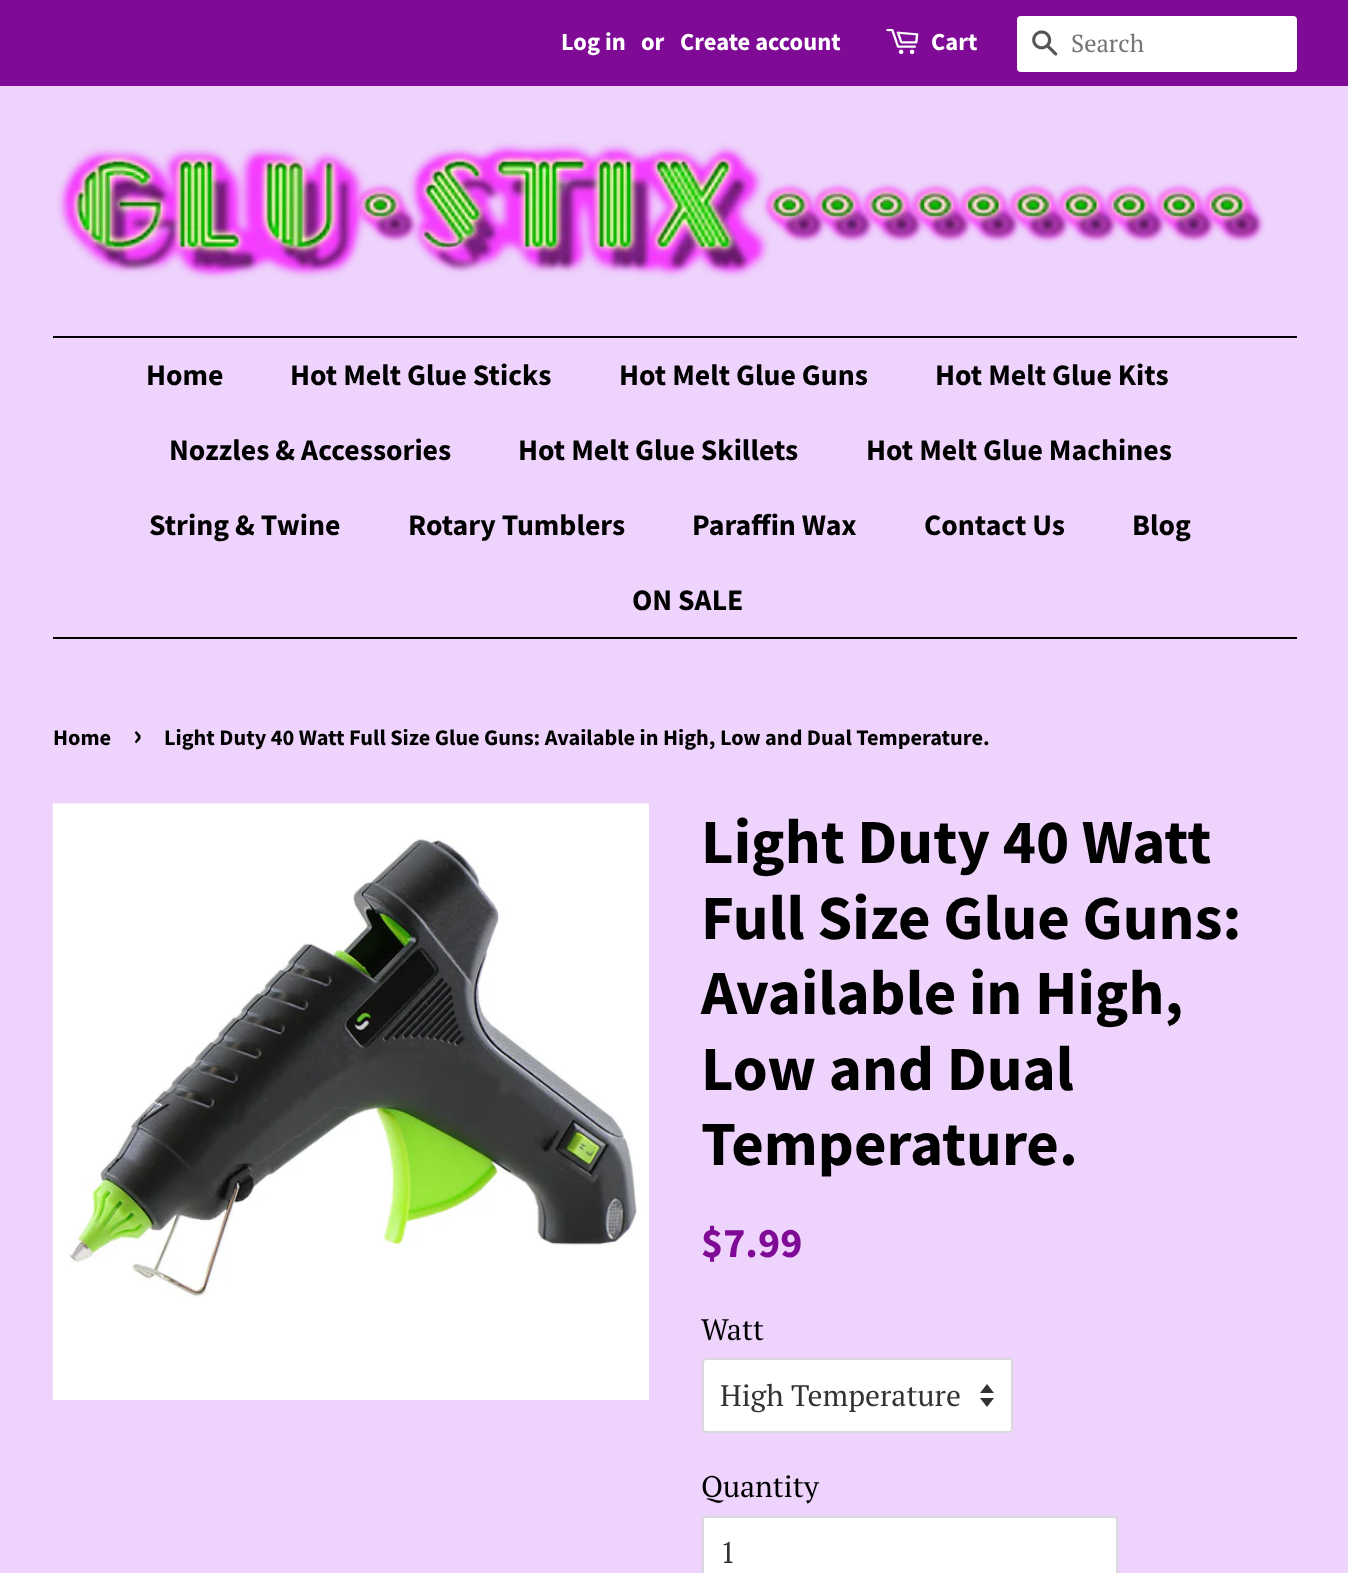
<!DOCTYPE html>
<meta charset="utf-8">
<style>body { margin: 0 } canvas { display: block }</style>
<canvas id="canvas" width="1348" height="1573"></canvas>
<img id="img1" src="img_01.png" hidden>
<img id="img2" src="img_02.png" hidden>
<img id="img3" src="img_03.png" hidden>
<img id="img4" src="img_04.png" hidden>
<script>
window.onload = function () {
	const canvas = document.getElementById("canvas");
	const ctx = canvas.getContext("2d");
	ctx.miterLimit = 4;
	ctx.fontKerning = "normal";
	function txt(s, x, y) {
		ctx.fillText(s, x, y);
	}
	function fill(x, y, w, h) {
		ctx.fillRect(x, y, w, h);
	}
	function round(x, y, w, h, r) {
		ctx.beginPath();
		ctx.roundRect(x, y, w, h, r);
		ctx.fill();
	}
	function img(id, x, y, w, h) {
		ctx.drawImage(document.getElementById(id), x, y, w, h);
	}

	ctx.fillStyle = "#EED4FC";
	fill(0, 0, 1348, 1573);
	ctx.fillStyle = "#7E0A95";
	fill(0, 0, 1348, 86);
	img("img1", 886, 29, 33, 26);
	ctx.fillStyle = "#FFFFFF";
	round(1017, 16, 280, 56, 4);
	img("img2", 1032, 30, 26, 26);
	img("img3", 56, 141, 1210, 140);
	ctx.fillStyle = "#000000";
	fill(53, 336, 1244, 2);
	fill(53, 637, 1244, 2);
	img("img4", 52, 803, 597, 597);
	ctx.fillStyle = "#FFFFFF";
	round(702, 1358, 311, 75, 4);
	ctx.fillStyle = "#333333";
	ctx.beginPath();
	ctx.moveTo(980, 1398);
	ctx.lineTo(987, 1407);
	ctx.lineTo(994, 1398);
	ctx.closePath();
	ctx.moveTo(987, 1384);
	ctx.lineTo(980, 1393);
	ctx.lineTo(994, 1393);
	ctx.closePath();
	ctx.fill();
	ctx.beginPath();
	ctx.roundRect(703, 1359, 309, 73, 3);
	ctx.strokeStyle = "rgba(0, 0, 0, 0.15)";
	ctx.lineWidth = 2;
	ctx.stroke();
	ctx.fillStyle = "#FFFFFF";
	round(702, 1516, 416, 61, 4);
	ctx.beginPath();
	ctx.roundRect(703, 1517, 414, 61, 3);
	ctx.stroke();
	ctx.font = "bold 24.5px Source Sans Pro";
	txt("Log in", 561, 50);
	txt("or", 641, 50);
	txt("Create account", 680, 50);
	txt("Cart", 931, 50);
	ctx.font = "24.5px PT Serif";
	ctx.fillStyle = "#757575";
	txt("Search", 1071, 52);
	ctx.font = "bold 29.75px Source Sans Pro";
	ctx.fillStyle = "#000000";
	txt("Home", 146, 385);
	txt("Hot Melt Glue Sticks", 290, 385);
	txt("Hot Melt Glue Guns", 619, 385);
	txt("Hot Melt Glue Kits", 935, 385);
	txt("Nozzles & Accessories", 169, 460);
	txt("Hot Melt Glue Skillets", 518, 460);
	txt("Hot Melt Glue Machines", 866, 460);
	txt("String & Twine", 149, 535);
	txt("Rotary Tumblers", 408, 535);
	txt("Paraffin Wax", 692, 535);
	txt("Contact Us", 924, 535);
	txt("Blog", 1132, 535);
	txt("ON SALE", 632, 610);
	ctx.font = "bold 22.3px Source Sans Pro";
	txt("Home", 53, 745);
	ctx.font = "bold 31px Source Sans Pro";
	txt("›", 133, 745);
	ctx.font = "bold 22.3px Source Sans Pro";
	txt("Light Duty 40 Watt Full Size Glue Guns: Available in High, Low and Dual Temperature.", 164, 745);
	ctx.font = "bold 63px Source Sans Pro";
	txt("Light Duty 40 Watt", 701, 863);
	txt("Full Size Glue Guns:", 701, 939);
	txt("Available in High,", 701, 1014);
	txt("Low and Dual", 701, 1090);
	txt("Temperature.", 701, 1165);
	ctx.font = "bold 42px Source Sans Pro";
	ctx.fillStyle = "#7E0A95";
	txt("$7.99", 701, 1257);
	ctx.font = "29.75px PT Serif";
	ctx.fillStyle = "#000000";
	txt("Watt", 701, 1340);
	ctx.fillStyle = "#333333";
	txt("High Temperature", 720, 1406);
	ctx.fillStyle = "#000000";
	txt("Quantity", 701, 1497);
	ctx.fillStyle = "#333333";
	txt("1", 720, 1563);
};
</script>
